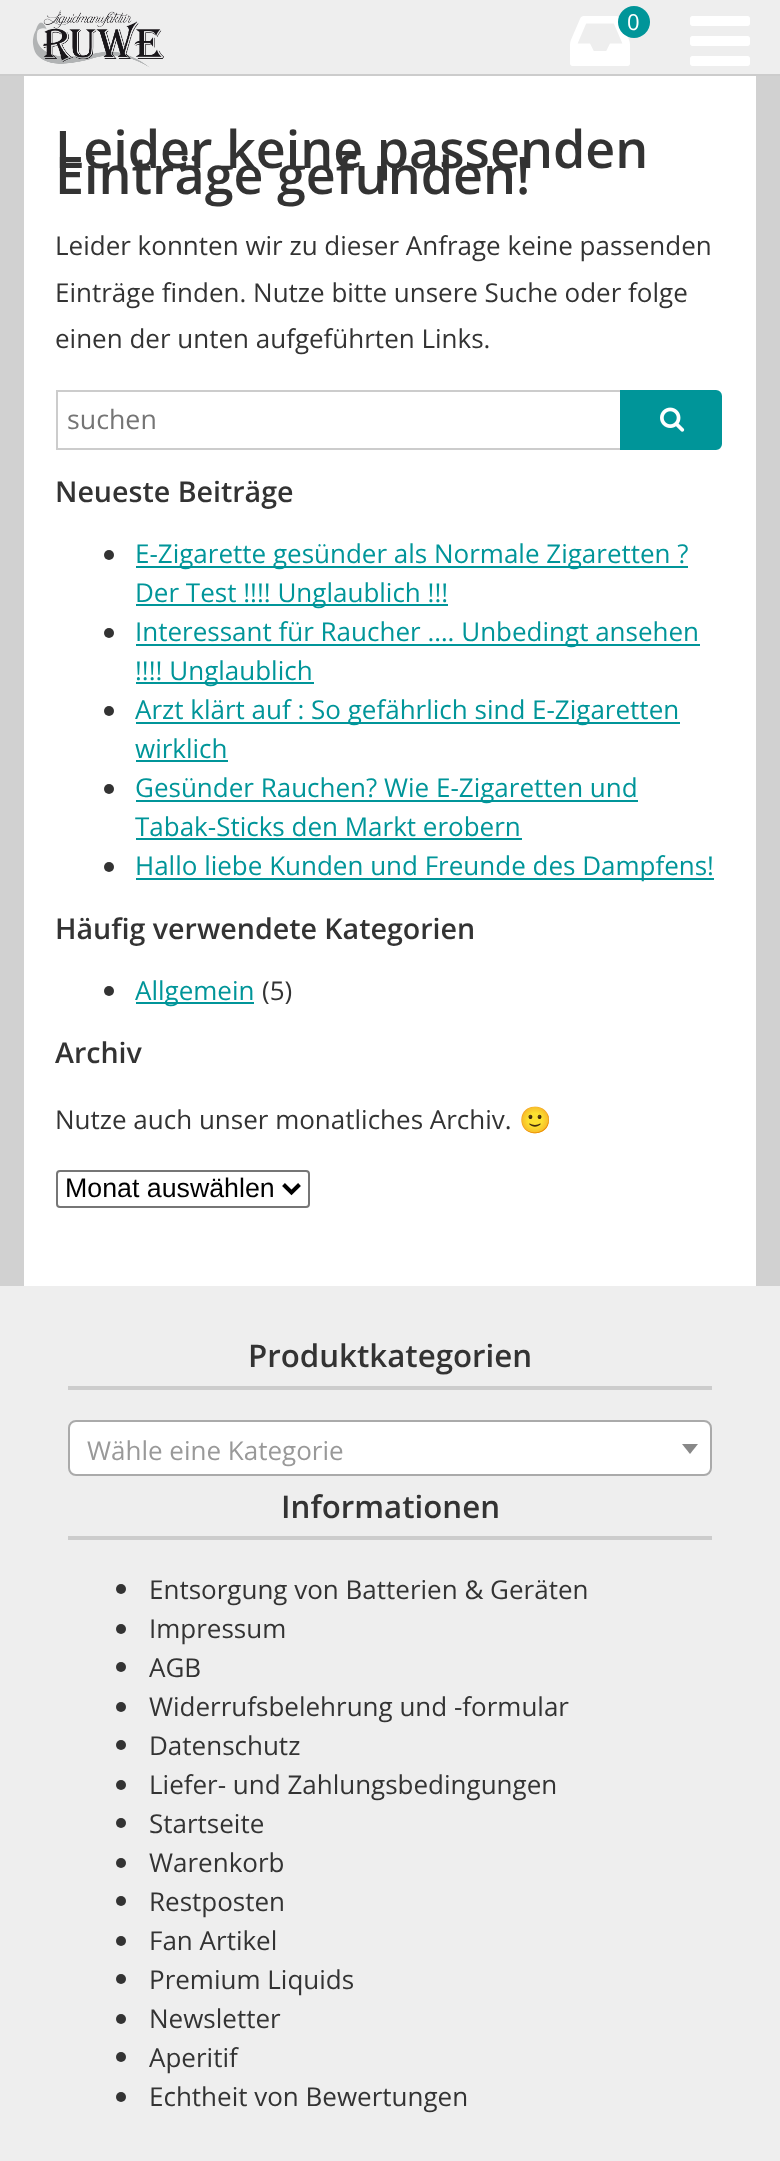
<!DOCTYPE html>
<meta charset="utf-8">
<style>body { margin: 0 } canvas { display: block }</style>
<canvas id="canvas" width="780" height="2161"></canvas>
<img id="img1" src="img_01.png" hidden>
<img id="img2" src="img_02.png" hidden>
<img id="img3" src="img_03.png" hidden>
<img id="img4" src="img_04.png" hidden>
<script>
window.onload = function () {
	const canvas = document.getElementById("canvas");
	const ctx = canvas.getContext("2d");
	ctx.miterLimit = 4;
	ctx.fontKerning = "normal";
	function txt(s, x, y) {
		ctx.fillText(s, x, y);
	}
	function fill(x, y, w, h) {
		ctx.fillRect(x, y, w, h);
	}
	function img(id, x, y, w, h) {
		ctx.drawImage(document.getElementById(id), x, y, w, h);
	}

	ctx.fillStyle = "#D1D1D1";
	fill(0, 0, 780, 2161);
	ctx.fillStyle = "#EEEEEE";
	fill(0, 0, 780, 74);
	ctx.fillStyle = "#CCCCCC";
	fill(0, 74, 780, 2);
	img("img1", 32, 10, 132, 58);
	img("img2", 570, 16, 60, 50);
	ctx.fillStyle = "#009599";
	ctx.beginPath();
	ctx.arc(634, 22, 16, 0, Math.PI * 2);
	ctx.fill();
	img("img3", 690, 16, 60, 50);
	ctx.fillStyle = "#FFFFFF";
	fill(24, 76, 732, 1210);
	ctx.fillStyle = "#CCCCCC";
	fill(56, 390, 568, 2);
	fill(56, 448, 568, 2);
	fill(56, 390, 2, 60);
	ctx.fillStyle = "#009599";
	ctx.beginPath();
	ctx.roundRect(621, 391, 100, 58, [0, 5, 5, 0]);
	ctx.fill();
	ctx.strokeStyle = "#009599";
	ctx.lineWidth = 2;
	ctx.stroke();
	img("img4", 660, 407, 25, 25);
	ctx.fillStyle = "#333333";
	ctx.beginPath();
	ctx.arc(109, 555, 5, 0, Math.PI * 2);
	ctx.fill();
	ctx.fillStyle = "#009599";
	fill(136, 566, 552, 2);
	fill(136, 604, 312, 2);
	ctx.fillStyle = "#333333";
	ctx.beginPath();
	ctx.arc(109, 633, 5, 0, Math.PI * 2);
	ctx.fill();
	ctx.fillStyle = "#009599";
	fill(136, 644, 564, 2);
	fill(136, 682, 178, 2);
	ctx.fillStyle = "#333333";
	ctx.beginPath();
	ctx.arc(109, 711, 5, 0, Math.PI * 2);
	ctx.fill();
	ctx.fillStyle = "#009599";
	fill(136, 722, 544, 2);
	fill(136, 760, 92, 2);
	ctx.fillStyle = "#333333";
	ctx.beginPath();
	ctx.arc(109, 789, 5, 0, Math.PI * 2);
	ctx.fill();
	ctx.fillStyle = "#009599";
	fill(136, 800, 502, 2);
	fill(136, 838, 386, 2);
	ctx.fillStyle = "#333333";
	ctx.beginPath();
	ctx.arc(109, 867, 5, 0, Math.PI * 2);
	ctx.fill();
	ctx.fillStyle = "#009599";
	fill(136, 878, 578, 2);
	ctx.fillStyle = "#333333";
	ctx.beginPath();
	ctx.arc(109, 991, 5, 0, Math.PI * 2);
	ctx.fill();
	ctx.fillStyle = "#009599";
	fill(136, 1002, 118, 2);
	ctx.beginPath();
	ctx.roundRect(57, 1171, 252, 36, 3);
	ctx.strokeStyle = "#767676";
	ctx.stroke();
	ctx.beginPath();
	ctx.moveTo(283.5, 1184.5);
	ctx.lineTo(291.5, 1192.5);
	ctx.lineTo(299.5, 1184.5);
	ctx.strokeStyle = "#000000";
	ctx.lineWidth = 4;
	ctx.stroke();
	ctx.fillStyle = "#EEEEEE";
	fill(0, 1286, 780, 875);
	ctx.fillStyle = "#CCCCCC";
	fill(68, 1386, 644, 4);
	ctx.fillStyle = "#FFFFFF";
	ctx.beginPath();
	ctx.roundRect(69, 1421, 642, 54, 7);
	ctx.fill();
	ctx.strokeStyle = "#AAAAAA";
	ctx.lineWidth = 2;
	ctx.stroke();
	ctx.fillStyle = "#888888";
	ctx.beginPath();
	ctx.moveTo(682, 1444);
	ctx.lineTo(698, 1444);
	ctx.lineTo(690, 1454);
	ctx.closePath();
	ctx.fill();
	ctx.fillStyle = "#CCCCCC";
	fill(68, 1536, 644, 4);
	ctx.fillStyle = "#333333";
	ctx.beginPath();
	ctx.arc(121, 1589, 5, 0, Math.PI * 2);
	ctx.fill();
	ctx.beginPath();
	ctx.arc(121, 1629, 5, 0, Math.PI * 2);
	ctx.fill();
	ctx.beginPath();
	ctx.arc(121, 1667, 5, 0, Math.PI * 2);
	ctx.fill();
	ctx.beginPath();
	ctx.arc(121, 1707, 5, 0, Math.PI * 2);
	ctx.fill();
	ctx.beginPath();
	ctx.arc(121, 1745, 5, 0, Math.PI * 2);
	ctx.fill();
	ctx.beginPath();
	ctx.arc(121, 1785, 5, 0, Math.PI * 2);
	ctx.fill();
	ctx.beginPath();
	ctx.arc(121, 1823, 5, 0, Math.PI * 2);
	ctx.fill();
	ctx.beginPath();
	ctx.arc(121, 1863, 5, 0, Math.PI * 2);
	ctx.fill();
	ctx.beginPath();
	ctx.arc(121, 1901, 5, 0, Math.PI * 2);
	ctx.fill();
	ctx.beginPath();
	ctx.arc(121, 1941, 5, 0, Math.PI * 2);
	ctx.fill();
	ctx.beginPath();
	ctx.arc(121, 1979, 5, 0, Math.PI * 2);
	ctx.fill();
	ctx.beginPath();
	ctx.arc(121, 2019, 5, 0, Math.PI * 2);
	ctx.fill();
	ctx.beginPath();
	ctx.arc(121, 2057, 5, 0, Math.PI * 2);
	ctx.fill();
	ctx.beginPath();
	ctx.arc(121, 2097, 5, 0, Math.PI * 2);
	ctx.fill();
	ctx.font = "22px Open Sans";
	ctx.fillStyle = "#FFFFFF";
	txt("0", 627, 30);
	ctx.font = "600 52px Open Sans";
	ctx.fillStyle = "#333333";
	txt("Leider keine passenden", 55, 168);
	txt("Einträge gefunden!", 55, 194);
	ctx.font = "26px Open Sans";
	txt("Leider konnten wir zu dieser Anfrage keine passenden", 55, 255);
	txt("Einträge finden. Nutze bitte unsere Suche oder folge", 55, 302);
	txt("einen der unten aufgeführten Links.", 55, 348);
	ctx.font = "26.75px Open Sans";
	ctx.fillStyle = "#757575";
	txt("suchen", 67, 429);
	ctx.font = "600 28.6px Open Sans";
	ctx.fillStyle = "#333333";
	txt("Neueste Beiträge", 55, 502);
	ctx.font = "26px Open Sans";
	ctx.fillStyle = "#009599";
	txt("E-Zigarette gesünder als Normale Zigaretten ?", 135, 563);
	txt("Der Test !!!! Unglaublich !!!", 135, 602);
	txt("Interessant für Raucher …. Unbedingt ansehen", 135, 641);
	txt("!!!! Unglaublich", 135, 680);
	txt("Arzt klärt auf : So gefährlich sind E-Zigaretten", 135, 719);
	txt("wirklich", 135, 758);
	txt("Gesünder Rauchen? Wie E-Zigaretten und", 135, 797);
	txt("Tabak-Sticks den Markt erobern", 135, 836);
	txt("Hallo liebe Kunden und Freunde des Dampfens!", 135, 875);
	ctx.font = "600 28.6px Open Sans";
	ctx.fillStyle = "#333333";
	txt("Häufig verwendete Kategorien", 55, 939);
	ctx.font = "26px Open Sans";
	ctx.fillStyle = "#009599";
	txt("Allgemein", 135, 1000);
	ctx.fillStyle = "#333333";
	txt("(5)", 262, 1000);
	ctx.font = "600 28.6px Open Sans";
	txt("Archiv", 55, 1063);
	ctx.font = "26px Open Sans";
	txt("Nutze auch unser monatliches Archiv.", 55, 1129);
	ctx.font = "26px Noto Color Emoji";
	txt("🙂", 519, 1129);
	ctx.font = "26.75px Liberation Sans";
	ctx.fillStyle = "#000000";
	txt("Monat auswählen", 65, 1197);
	ctx.font = "600 31.25px Open Sans";
	ctx.fillStyle = "#333333";
	txt("Produktkategorien", 248, 1367);
	ctx.font = "26px Open Sans";
	ctx.fillStyle = "#999999";
	txt("Wähle eine Kategorie", 87, 1460);
	ctx.font = "600 31.25px Open Sans";
	ctx.fillStyle = "#333333";
	txt("Informationen", 281, 1518);
	ctx.font = "26px Open Sans";
	txt("Entsorgung von Batterien & Geräten", 149, 1599);
	txt("Impressum", 149, 1638);
	txt("AGB", 149, 1677);
	txt("Widerrufsbelehrung und -formular", 149, 1716);
	txt("Datenschutz", 149, 1755);
	txt("Liefer- und Zahlungsbedingungen", 149, 1794);
	txt("Startseite", 149, 1833);
	txt("Warenkorb", 149, 1872);
	txt("Restposten", 149, 1911);
	txt("Fan Artikel", 149, 1950);
	txt("Premium Liquids", 149, 1989);
	txt("Newsletter", 149, 2028);
	txt("Aperitif", 149, 2067);
	txt("Echtheit von Bewertungen", 149, 2106);
};
</script>
